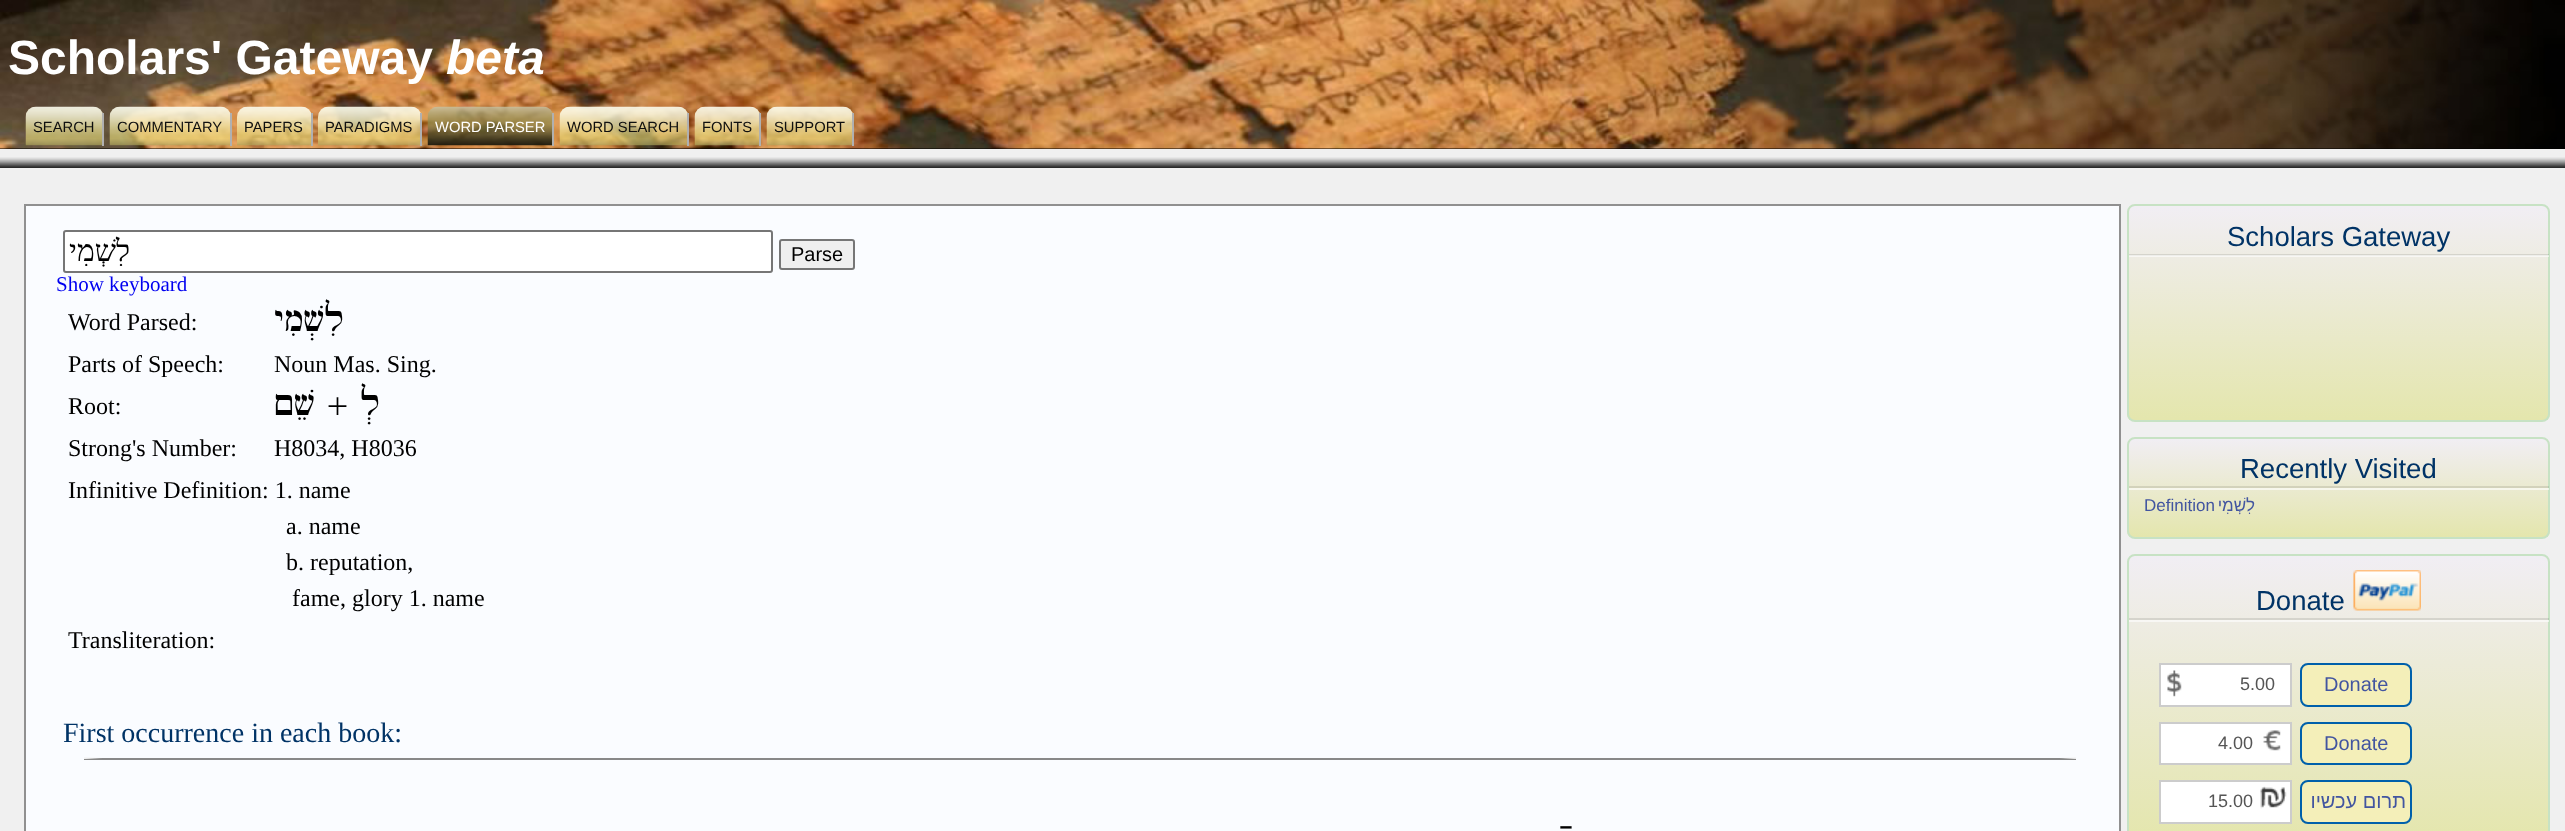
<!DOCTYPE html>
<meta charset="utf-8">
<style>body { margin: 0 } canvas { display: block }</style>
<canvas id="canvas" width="2565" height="831"></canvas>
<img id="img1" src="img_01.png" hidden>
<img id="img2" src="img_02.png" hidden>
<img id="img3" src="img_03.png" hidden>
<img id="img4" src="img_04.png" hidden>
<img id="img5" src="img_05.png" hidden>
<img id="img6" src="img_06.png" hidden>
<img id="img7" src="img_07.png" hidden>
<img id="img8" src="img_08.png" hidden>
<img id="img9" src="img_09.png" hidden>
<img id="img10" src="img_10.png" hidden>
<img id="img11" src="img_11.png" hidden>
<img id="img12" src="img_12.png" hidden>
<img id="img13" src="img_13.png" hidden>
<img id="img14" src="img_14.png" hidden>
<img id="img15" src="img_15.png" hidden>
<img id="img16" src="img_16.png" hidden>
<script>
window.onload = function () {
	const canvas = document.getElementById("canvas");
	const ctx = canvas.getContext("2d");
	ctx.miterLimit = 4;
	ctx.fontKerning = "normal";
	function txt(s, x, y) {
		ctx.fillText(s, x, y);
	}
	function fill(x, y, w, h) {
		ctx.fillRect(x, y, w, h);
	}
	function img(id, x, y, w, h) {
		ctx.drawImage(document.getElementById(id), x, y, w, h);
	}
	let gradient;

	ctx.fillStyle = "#F0F0F0";
	fill(0, 0, 2565, 831);
	ctx.fillStyle = "#000000";
	fill(0, 148, 2565, 1);
	img("img1", 0, 0, 2565, 149);
	img("img2", 25, 106, 78, 40);
	ctx.fillStyle = "#B0B0B0";
	fill(102, 113, 2, 33);
	img("img3", 109, 106, 122, 40);
	fill(230, 113, 2, 33);
	img("img4", 237, 106, 75, 40);
	fill(311, 113, 2, 33);
	img("img5", 318, 106, 103, 40);
	fill(420, 113, 2, 33);
	img("img6", 427, 106, 126, 40);
	fill(552, 113, 2, 33);
	img("img7", 559, 106, 129, 40);
	fill(687, 113, 2, 33);
	img("img8", 694, 106, 66, 40);
	fill(759, 113, 2, 33);
	img("img9", 766, 106, 87, 40);
	fill(852, 113, 2, 33);
	img("img10", 0, 157, 2565, 11);
	ctx.fillStyle = "#FAFCFF";
	ctx.beginPath();
	ctx.rect(25, 205, 2095, 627);
	ctx.fill();
	ctx.strokeStyle = "#909090";
	ctx.lineWidth = 2;
	ctx.stroke();
	ctx.fillStyle = "#FFFFFF";
	ctx.beginPath();
	ctx.roundRect(64, 231, 708, 41, 2);
	ctx.fill();
	ctx.strokeStyle = "#767676";
	ctx.stroke();
	ctx.fillStyle = "#EFEFEF";
	ctx.beginPath();
	ctx.roundRect(780, 240, 74, 29, 2);
	ctx.fill();
	ctx.stroke();
	ctx.fillStyle = "#888888";
	fill(84, 758, 1992, 2);
	img("img11", 84, 757, 18, 2);
	img("img12", 2060, 757, 16, 2);
	ctx.save();
	ctx.beginPath();
	ctx.roundRect(2127, 204, 423, 218, 8);
	ctx.clip();
	gradient = ctx.createLinearGradient(2129, 206, 2129, 420);
	gradient.addColorStop(0, "#F1EEF4");
	gradient.addColorStop(1, "#E4E6AD");
	ctx.fillStyle = gradient;
	fill(2127, 206, 423, 214);
	ctx.restore();
	ctx.beginPath();
	ctx.roundRect(2128, 205, 421, 216, 7);
	ctx.strokeStyle = "#C7E2C4";
	ctx.stroke();
	ctx.fillStyle = "rgba(0, 0, 0, 0.1)";
	fill(2129, 254, 420, 2);
	ctx.fillStyle = "rgba(255, 255, 255, 0.6)";
	fill(2129, 255, 420, 2);
	ctx.save();
	ctx.beginPath();
	ctx.roundRect(2127, 437, 423, 102, 8);
	ctx.clip();
	gradient = ctx.createLinearGradient(2129, 438, 2129, 537);
	gradient.addColorStop(0, "#F1EEF4");
	gradient.addColorStop(1, "#E4E6AD");
	ctx.fillStyle = gradient;
	fill(2127, 438, 423, 99);
	ctx.restore();
	ctx.beginPath();
	ctx.roundRect(2128, 438, 421, 100, 7);
	ctx.stroke();
	ctx.fillStyle = "rgba(0, 0, 0, 0.1)";
	fill(2129, 486, 420, 2);
	ctx.fillStyle = "rgba(255, 255, 255, 0.6)";
	fill(2129, 488, 420, 2);
	ctx.save();
	ctx.beginPath();
	ctx.roundRect(2127, 554, 423, 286, 8);
	ctx.clip();
	gradient = ctx.createLinearGradient(2129, 555, 2129, 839);
	gradient.addColorStop(0, "#F1EEF4");
	gradient.addColorStop(1, "#E4E6AD");
	ctx.fillStyle = gradient;
	fill(2127, 555, 423, 276);
	ctx.restore();
	ctx.beginPath();
	ctx.roundRect(2128, 555, 421, 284, 7);
	ctx.stroke();
	img("img13", 2353, 570, 68, 41);
	ctx.fillStyle = "rgba(0, 0, 0, 0.1)";
	fill(2129, 618, 420, 2);
	ctx.fillStyle = "rgba(255, 255, 255, 0.6)";
	fill(2129, 620, 420, 2);
	ctx.fillStyle = "#FFFFFF";
	fill(2161, 665, 129, 40);
	img("img14", 2167, 670, 15, 27);
	ctx.strokeStyle = "#CCCCCC";
	ctx.strokeRect(2160, 664, 131, 42);
	ctx.fillStyle = "#F4EFB9";
	ctx.beginPath();
	ctx.roundRect(2301, 664, 110, 42, 7);
	ctx.fill();
	ctx.strokeStyle = "#0060AB";
	ctx.stroke();
	ctx.fillStyle = "#FFFFFF";
	fill(2161, 724, 129, 39);
	img("img15", 2263, 730, 18, 21);
	ctx.strokeStyle = "#CCCCCC";
	ctx.strokeRect(2160, 723, 131, 41);
	ctx.fillStyle = "#F4EFB9";
	ctx.beginPath();
	ctx.roundRect(2301, 723, 110, 41, 7);
	ctx.fill();
	ctx.strokeStyle = "#0060AB";
	ctx.stroke();
	ctx.fillStyle = "#FFFFFF";
	fill(2161, 782, 129, 40);
	img("img16", 2260, 786, 27, 23);
	ctx.strokeStyle = "#CCCCCC";
	ctx.strokeRect(2160, 781, 131, 42);
	ctx.fillStyle = "#F4EFB9";
	ctx.beginPath();
	ctx.roundRect(2301, 781, 110, 42, 7);
	ctx.fill();
	ctx.strokeStyle = "#0060AB";
	ctx.stroke();
	ctx.font = "bold 48px Liberation Sans";
	ctx.fillStyle = "#FFFFFF";
	txt("Scholars' Gateway", 8, 74);
	ctx.font = "italic bold 48px Liberation Sans";
	txt("beta", 446, 74);
	ctx.font = "14.75px Liberation Sans";
	ctx.fillStyle = "#0F0F0F";
	txt("SEARCH", 33, 132);
	txt("COMMENTARY", 117, 132);
	txt("PAPERS", 244, 132);
	txt("PARADIGMS", 325, 132);
	ctx.fillStyle = "#FFFFFF";
	txt("WORD PARSER", 435, 132);
	ctx.fillStyle = "#0F0F0F";
	txt("WORD SEARCH", 567, 132);
	txt("FONTS", 702, 132);
	txt("SUPPORT", 774, 132);
	ctx.direction = "rtl";
	ctx.font = "30px Liberation Serif";
	ctx.fillStyle = "#000000";
	txt("לִשְׁמִי", 130, 261);
	ctx.direction = "ltr";
	ctx.font = "20px Liberation Sans";
	txt("Parse", 791, 261);
	ctx.font = "21px Liberation Serif";
	ctx.fillStyle = "#0000F0";
	txt("Show keyboard", 56, 291);
	ctx.font = "24px Liberation Serif";
	ctx.fillStyle = "#000000";
	txt("Word Parsed:", 68, 330);
	ctx.direction = "rtl";
	ctx.font = "30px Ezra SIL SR";
	txt("לִשְׁמִי", 344, 331);
	ctx.direction = "ltr";
	ctx.font = "24px Liberation Serif";
	txt("Parts of Speech:", 68, 372);
	txt("Noun Mas. Sing.", 274, 372);
	txt("Root:", 68, 414);
	ctx.direction = "rtl";
	ctx.font = "30px Ezra SIL SR";
	txt("לְ + שֵׁם", 380, 415);
	ctx.direction = "ltr";
	ctx.font = "24px Liberation Serif";
	txt("Strong's Number:", 68, 456);
	txt("H8034, H8036", 274, 456);
	txt("Infinitive Definition: 1. name", 68, 498);
	txt("a. name", 286, 534);
	txt("b. reputation,", 286, 570);
	txt("fame, glory 1. name", 292, 606);
	txt("Transliteration:", 68, 648);
	ctx.font = "28px Liberation Serif";
	ctx.fillStyle = "#003366";
	txt("First occurrence in each book:", 63, 742);
	ctx.direction = "rtl";
	ctx.font = "30px Ezra SIL SR";
	ctx.fillStyle = "#000000";
	txt("־", 1573, 846);
	ctx.direction = "ltr";
	ctx.font = "27.5px Liberation Sans";
	ctx.fillStyle = "#003366";
	txt("Scholars Gateway", 2227, 246);
	txt("Recently Visited", 2240, 478);
	ctx.font = "17px Liberation Sans";
	ctx.fillStyle = "#4255A0";
	txt("Definition", 2144, 511);
	ctx.direction = "rtl";
	txt("לִשְׁמִי", 2255, 511);
	ctx.direction = "ltr";
	ctx.font = "27.5px Liberation Sans";
	ctx.fillStyle = "#003366";
	txt("Donate", 2256, 610);
	ctx.font = "18px Liberation Sans";
	ctx.fillStyle = "#555555";
	txt("5.00", 2240, 690);
	ctx.font = "20px Liberation Sans";
	ctx.fillStyle = "#4255A0";
	txt("Donate", 2324, 691);
	ctx.font = "18px Liberation Sans";
	ctx.fillStyle = "#555555";
	txt("4.00", 2218, 749);
	ctx.font = "20px Liberation Sans";
	ctx.fillStyle = "#4255A0";
	txt("Donate", 2324, 750);
	ctx.font = "18px Liberation Sans";
	ctx.fillStyle = "#555555";
	txt("15.00", 2208, 807);
	ctx.direction = "rtl";
	ctx.font = "20px Liberation Sans";
	ctx.fillStyle = "#4255A0";
	txt("תרום עכשיו", 2406, 808);
};
</script>
